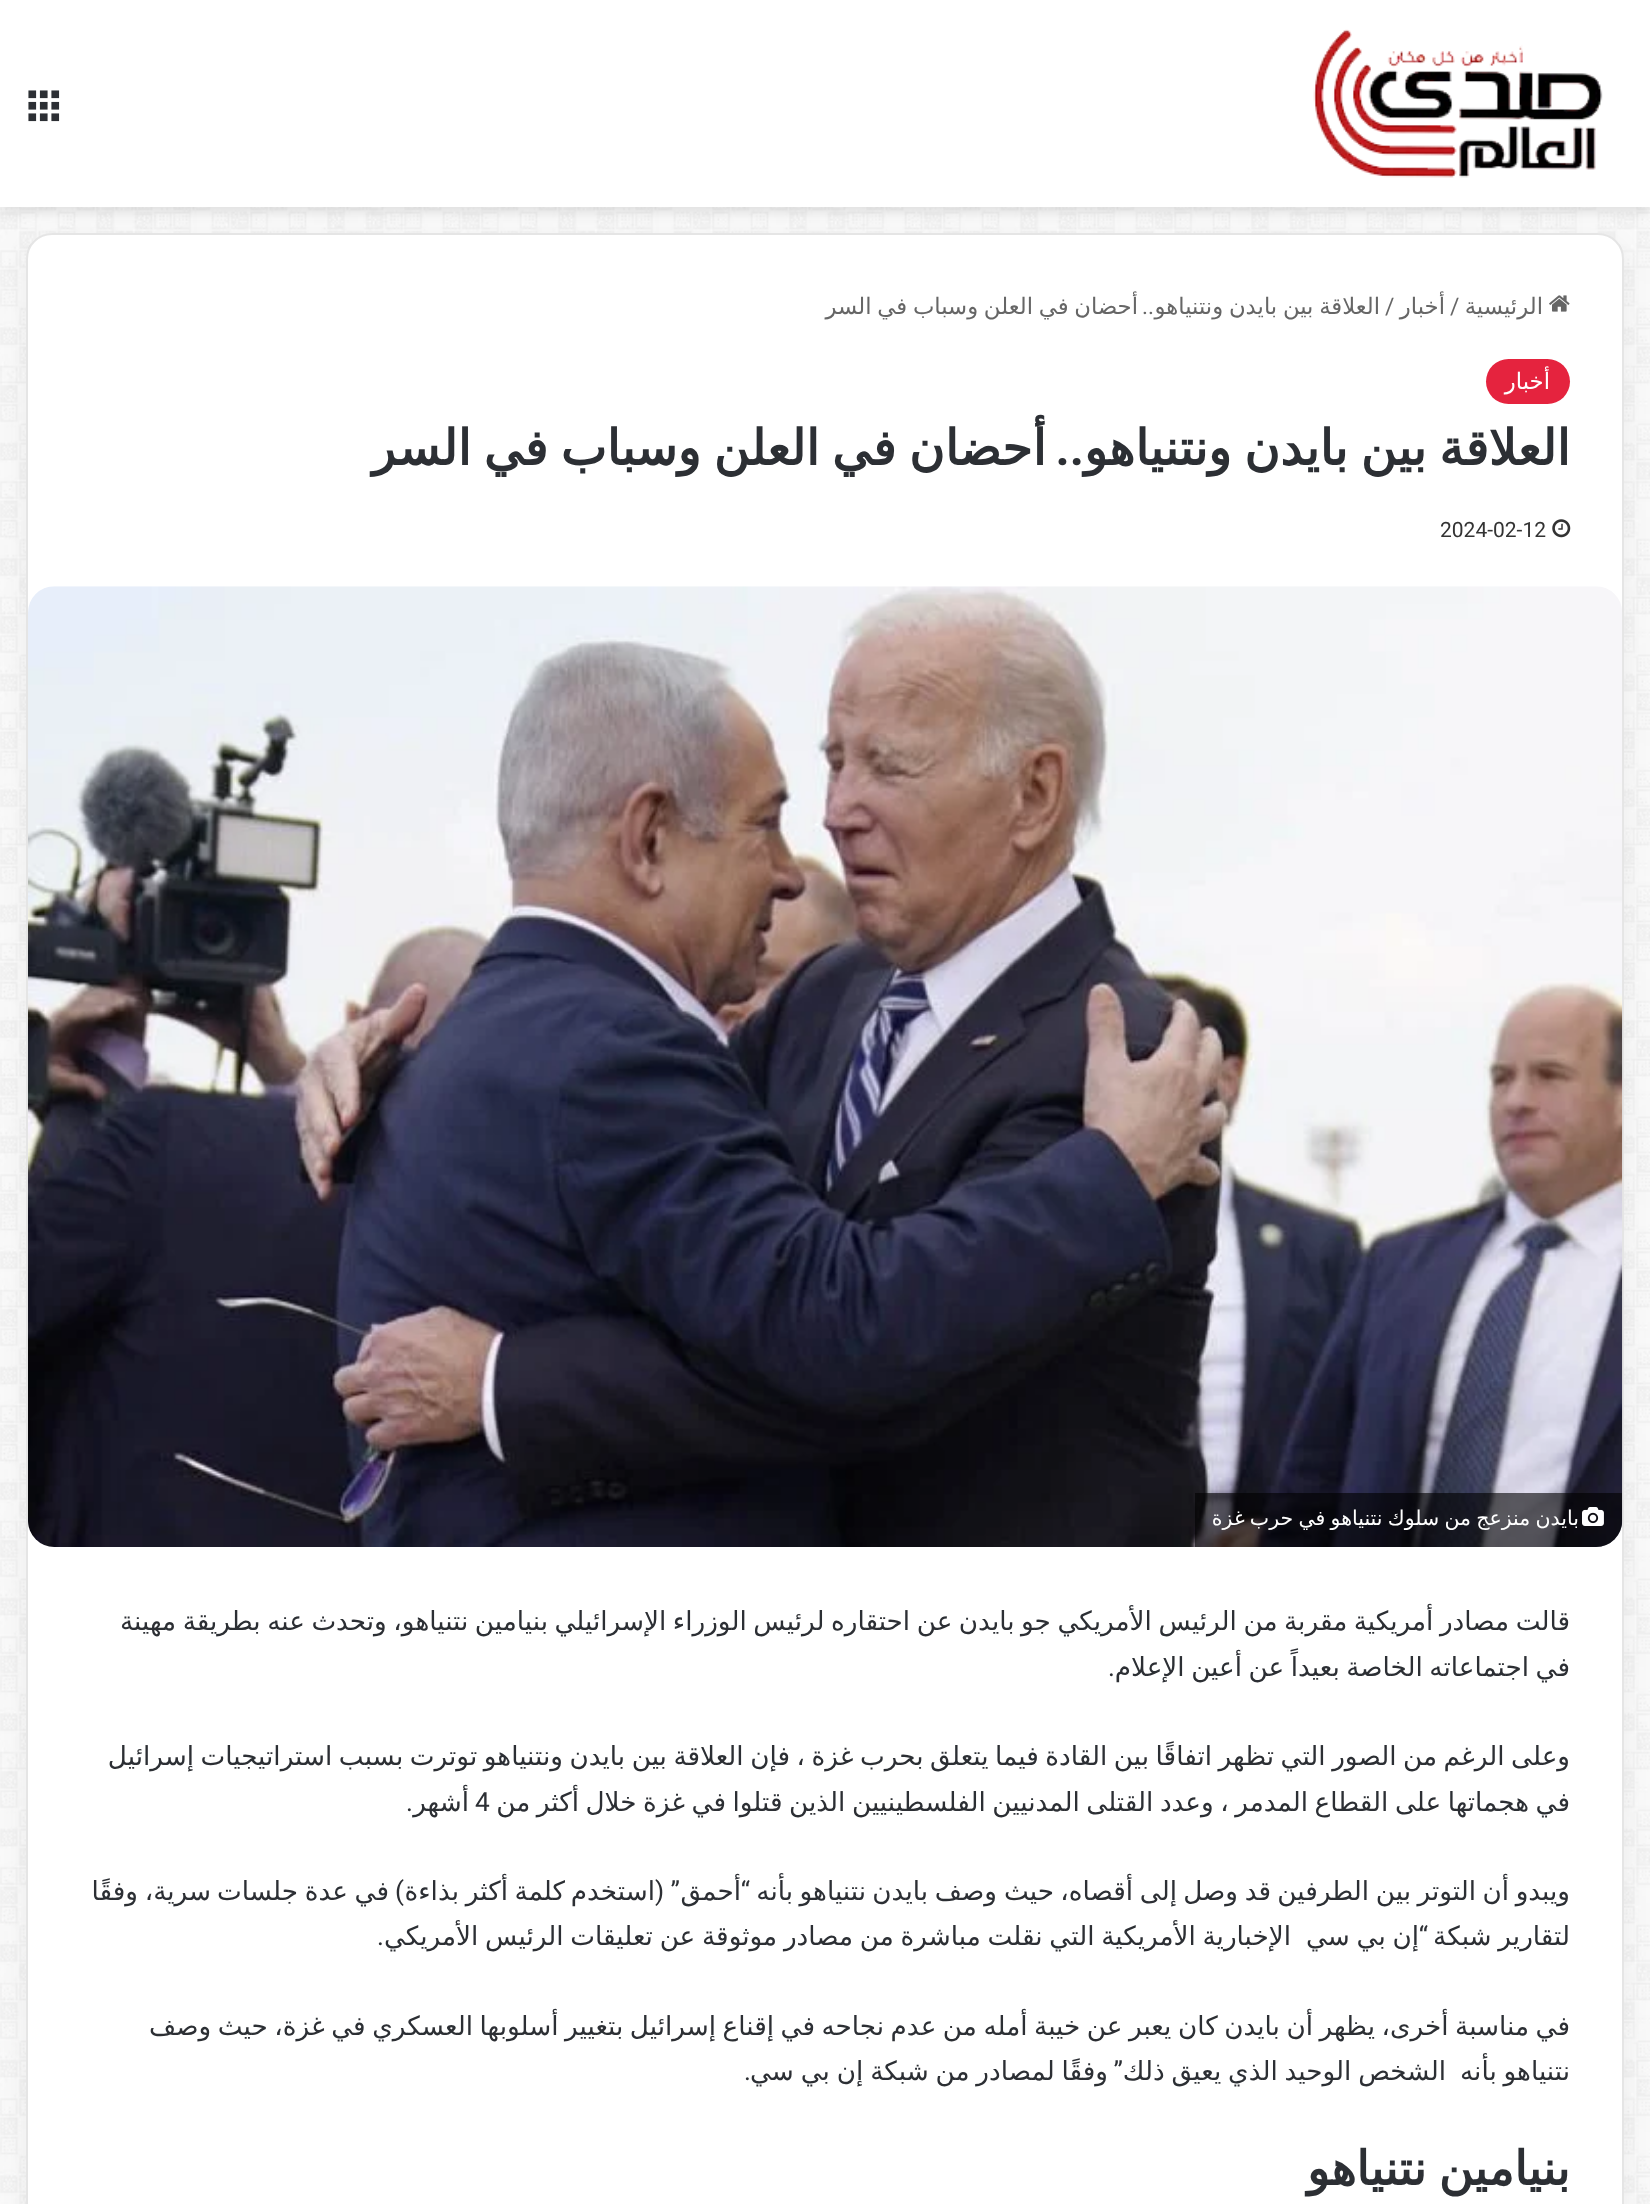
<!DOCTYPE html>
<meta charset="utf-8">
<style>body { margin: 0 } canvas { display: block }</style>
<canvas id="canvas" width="1650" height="2204"></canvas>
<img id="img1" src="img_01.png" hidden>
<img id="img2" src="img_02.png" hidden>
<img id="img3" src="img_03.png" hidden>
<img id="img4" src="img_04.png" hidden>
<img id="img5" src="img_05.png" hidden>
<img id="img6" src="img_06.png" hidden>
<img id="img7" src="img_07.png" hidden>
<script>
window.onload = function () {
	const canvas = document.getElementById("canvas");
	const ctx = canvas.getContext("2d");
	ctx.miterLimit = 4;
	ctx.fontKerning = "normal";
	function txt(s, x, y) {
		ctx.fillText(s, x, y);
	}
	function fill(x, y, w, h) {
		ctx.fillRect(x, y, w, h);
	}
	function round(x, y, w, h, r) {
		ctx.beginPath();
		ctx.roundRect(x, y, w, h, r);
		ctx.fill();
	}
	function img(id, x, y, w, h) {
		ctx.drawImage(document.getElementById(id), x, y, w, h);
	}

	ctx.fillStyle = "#FFFFFF";
	fill(0, 0, 1650, 2204);
	img("img1", 0, 207, 1650, 1997);
	ctx.fillStyle = "rgba(0, 0, 0, 0.1)";
	ctx.filter = "blur(6px)";
	ctx.beginPath();
	ctx.rect(0, 5, 1650, 207);
	ctx.fill();
	ctx.filter = "none";
	ctx.fillStyle = "rgba(0, 0, 0, 0.05)";
	ctx.filter = "blur(13px)";
	ctx.beginPath();
	ctx.roundRect(26, 242, 1598, 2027, 26);
	ctx.fill();
	ctx.filter = "none";
	ctx.fillStyle = "#FFFFFF";
	fill(0, 0, 1650, 207);
	img("img2", 1313, 29, 290, 149);
	img("img3", 28, 90, 32, 32);
	round(26, 233, 1598, 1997, 26);
	ctx.beginPath();
	ctx.roundRect(27, 234, 1596, 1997, 25);
	ctx.strokeStyle = "rgba(0, 0, 0, 0.1)";
	ctx.lineWidth = 2;
	ctx.stroke();
	img("img4", 1549, 295, 21, 17);
	ctx.fillStyle = "#E5233E";
	round(1486, 359, 84, 45, 22.5);
	img("img5", 1552, 519, 19, 19);
	img("img6", 28, 586, 1595, 961);
	ctx.fillStyle = "rgba(0, 0, 0, 0.6)";
	ctx.beginPath();
	ctx.roundRect(1195, 1493, 427, 54, [0, 0, 26, 0]);
	ctx.fill();
	img("img7", 1582, 1507, 22, 19);
	ctx.direction = "rtl";
	ctx.font = "22.75px DejaVu Sans";
	ctx.fillStyle = "#666666";
	txt("الرئيسية", 1543, 314);
	ctx.direction = "ltr";
	ctx.font = "22.75px Roboto";
	txt("/", 1450, 314);
	ctx.direction = "rtl";
	ctx.font = "22.75px DejaVu Sans";
	txt("أخبار", 1445, 314);
	ctx.direction = "ltr";
	ctx.font = "22.75px Roboto";
	txt("/", 1385, 314);
	ctx.wordSpacing = "-1.5px";
	ctx.direction = "rtl";
	ctx.font = "22.75px DejaVu Sans";
	txt("أحضان في العلن وسباب في السر", 1138, 314);
	ctx.wordSpacing = "0px";
	ctx.font = "22.75px Roboto";
	txt("..", 1154, 314);
	ctx.wordSpacing = "-1.5px";
	ctx.font = "22.75px DejaVu Sans";
	txt("العلاقة بين بايدن ونتنياهو", 1380, 314);
	ctx.wordSpacing = "0px";
	ctx.fillStyle = "#FFFFFF";
	txt("أخبار", 1550, 389);
	ctx.wordSpacing = "-3px";
	ctx.font = "bold 49px DejaVu Sans";
	ctx.fillStyle = "#2C2F34";
	txt("العلاقة بين بايدن ونتنياهو", 1570, 465);
	txt("أحضان في العلن وسباب في السر", 1046, 465);
	ctx.wordSpacing = "0px";
	ctx.font = "bold 49px Roboto";
	txt("..", 1084, 465);
	ctx.direction = "ltr";
	ctx.font = "21px Roboto";
	ctx.fillStyle = "#333333";
	txt("2024-02-12", 1440, 537);
	ctx.wordSpacing = "-1.25px";
	ctx.direction = "rtl";
	ctx.font = "20.5px DejaVu Sans";
	ctx.fillStyle = "#FFFFFF";
	txt("بايدن منزعج من سلوك نتنياهو في حرب غزة", 1579, 1525);
	ctx.wordSpacing = "-1.8px";
	ctx.font = "26.25px DejaVu Sans";
	ctx.fillStyle = "#2C2F34";
	txt("قالت مصادر أمريكية مقربة من الرئيس الأمريكي جو بايدن عن احتقاره لرئيس الوزراء الإسرائيلي بنيامين نتنياهو، وتحدث عنه بطريقة مهينة", 1570, 1630);
	txt("في اجتماعاته الخاصة بعيداً عن أعين الإعلام", 1570, 1676);
	ctx.wordSpacing = "0px";
	ctx.font = "26.25px Roboto";
	txt(".", 1115, 1676);
	ctx.wordSpacing = "-1.8px";
	ctx.font = "26.25px DejaVu Sans";
	txt("وعلى الرغم من الصور التي تظهر اتفاقًا بين القادة فيما يتعلق بحرب غزة ، فإن العلاقة بين بايدن ونتنياهو توترت بسبب استراتيجيات إسرائيل", 1570, 1765);
	txt("في هجماتها على القطاع المدمر ، وعدد القتلى المدنيين الفلسطينيين الذين قتلوا في غزة خلال أكثر من", 1570, 1811);
	ctx.wordSpacing = "0px";
	ctx.direction = "ltr";
	ctx.font = "26.25px Roboto";
	txt("4", 475, 1811);
	ctx.direction = "rtl";
	ctx.font = "26.25px DejaVu Sans";
	txt("أشهر", 469, 1811);
	ctx.font = "26.25px Roboto";
	txt(".", 413, 1811);
	ctx.font = "26.25px DejaVu Sans";
	txt("ويبدو", 1570, 1900);
	txt("أن", 1509, 1900);
	txt("التوتر", 1476, 1900);
	txt("بين", 1411, 1900);
	txt("الطرفين", 1369, 1900);
	txt("قد", 1271, 1900);
	txt("وصل", 1238, 1900);
	txt("إلى", 1177, 1900);
	txt("أقصاه،", 1133, 1900);
	txt("حيث", 1054, 1900);
	txt("وصف", 997, 1900);
	txt("بايدن", 928, 1900);
	txt("نتنياهو", 866, 1900);
	txt("بأنه", 793, 1900);
	ctx.font = "26.25px Roboto";
	txt("“", 750, 1900);
	ctx.font = "26.25px DejaVu Sans";
	txt("أحمق", 741, 1900);
	ctx.font = "26.25px Roboto";
	txt("” (", 680, 1900);
	ctx.font = "26.25px DejaVu Sans";
	txt("استخدم", 655, 1900);
	txt("كلمة", 565, 1900);
	txt("أكثر", 508, 1900);
	txt("بذاءة", 459, 1900);
	ctx.font = "26.25px Roboto";
	txt(")", 404, 1900);
	ctx.font = "26.25px DejaVu Sans";
	txt("في", 389, 1900);
	txt("عدة", 348, 1900);
	txt("جلسات", 298, 1900);
	txt("سرية،", 211, 1900);
	txt("وفقًا", 138, 1900);
	ctx.wordSpacing = "-1.6px";
	txt("لتقارير شبكة", 1570, 1945);
	txt("إن بي سي", 1419, 1945);
	ctx.wordSpacing = "0px";
	ctx.font = "26.25px Roboto";
	txt("“", 1428, 1945);
	ctx.wordSpacing = "-1.6px";
	ctx.font = "26.25px DejaVu Sans";
	txt("الإخبارية الأمريكية التي نقلت مباشرة من مصادر موثوقة عن تعليقات الرئيس الأمريكي", 1291, 1945);
	ctx.wordSpacing = "0px";
	ctx.font = "26.25px Roboto";
	txt(".", 384, 1945);
	ctx.wordSpacing = "-1.8px";
	ctx.font = "26.25px DejaVu Sans";
	txt("في مناسبة أخرى، يظهر أن بايدن كان يعبر عن خيبة أمله من عدم نجاحه في إقناع إسرائيل بتغيير أسلوبها العسكري في غزة، حيث وصف", 1570, 2035);
	ctx.wordSpacing = "-1.5px";
	txt("نتنياهو بأنه", 1570, 2080);
	txt("الشخص الوحيد الذي يعيق ذلك", 1446, 2080);
	txt("وفقًا لمصادر من شبكة إن بي سي", 1108, 2080);
	ctx.wordSpacing = "0px";
	ctx.font = "26.25px Roboto";
	txt("”", 1123, 2080);
	txt(".", 751, 2080);
	ctx.wordSpacing = "-3px";
	ctx.font = "bold 47.25px DejaVu Sans";
	txt("بنيامين نتنياهو", 1570, 2185);
};
</script>
